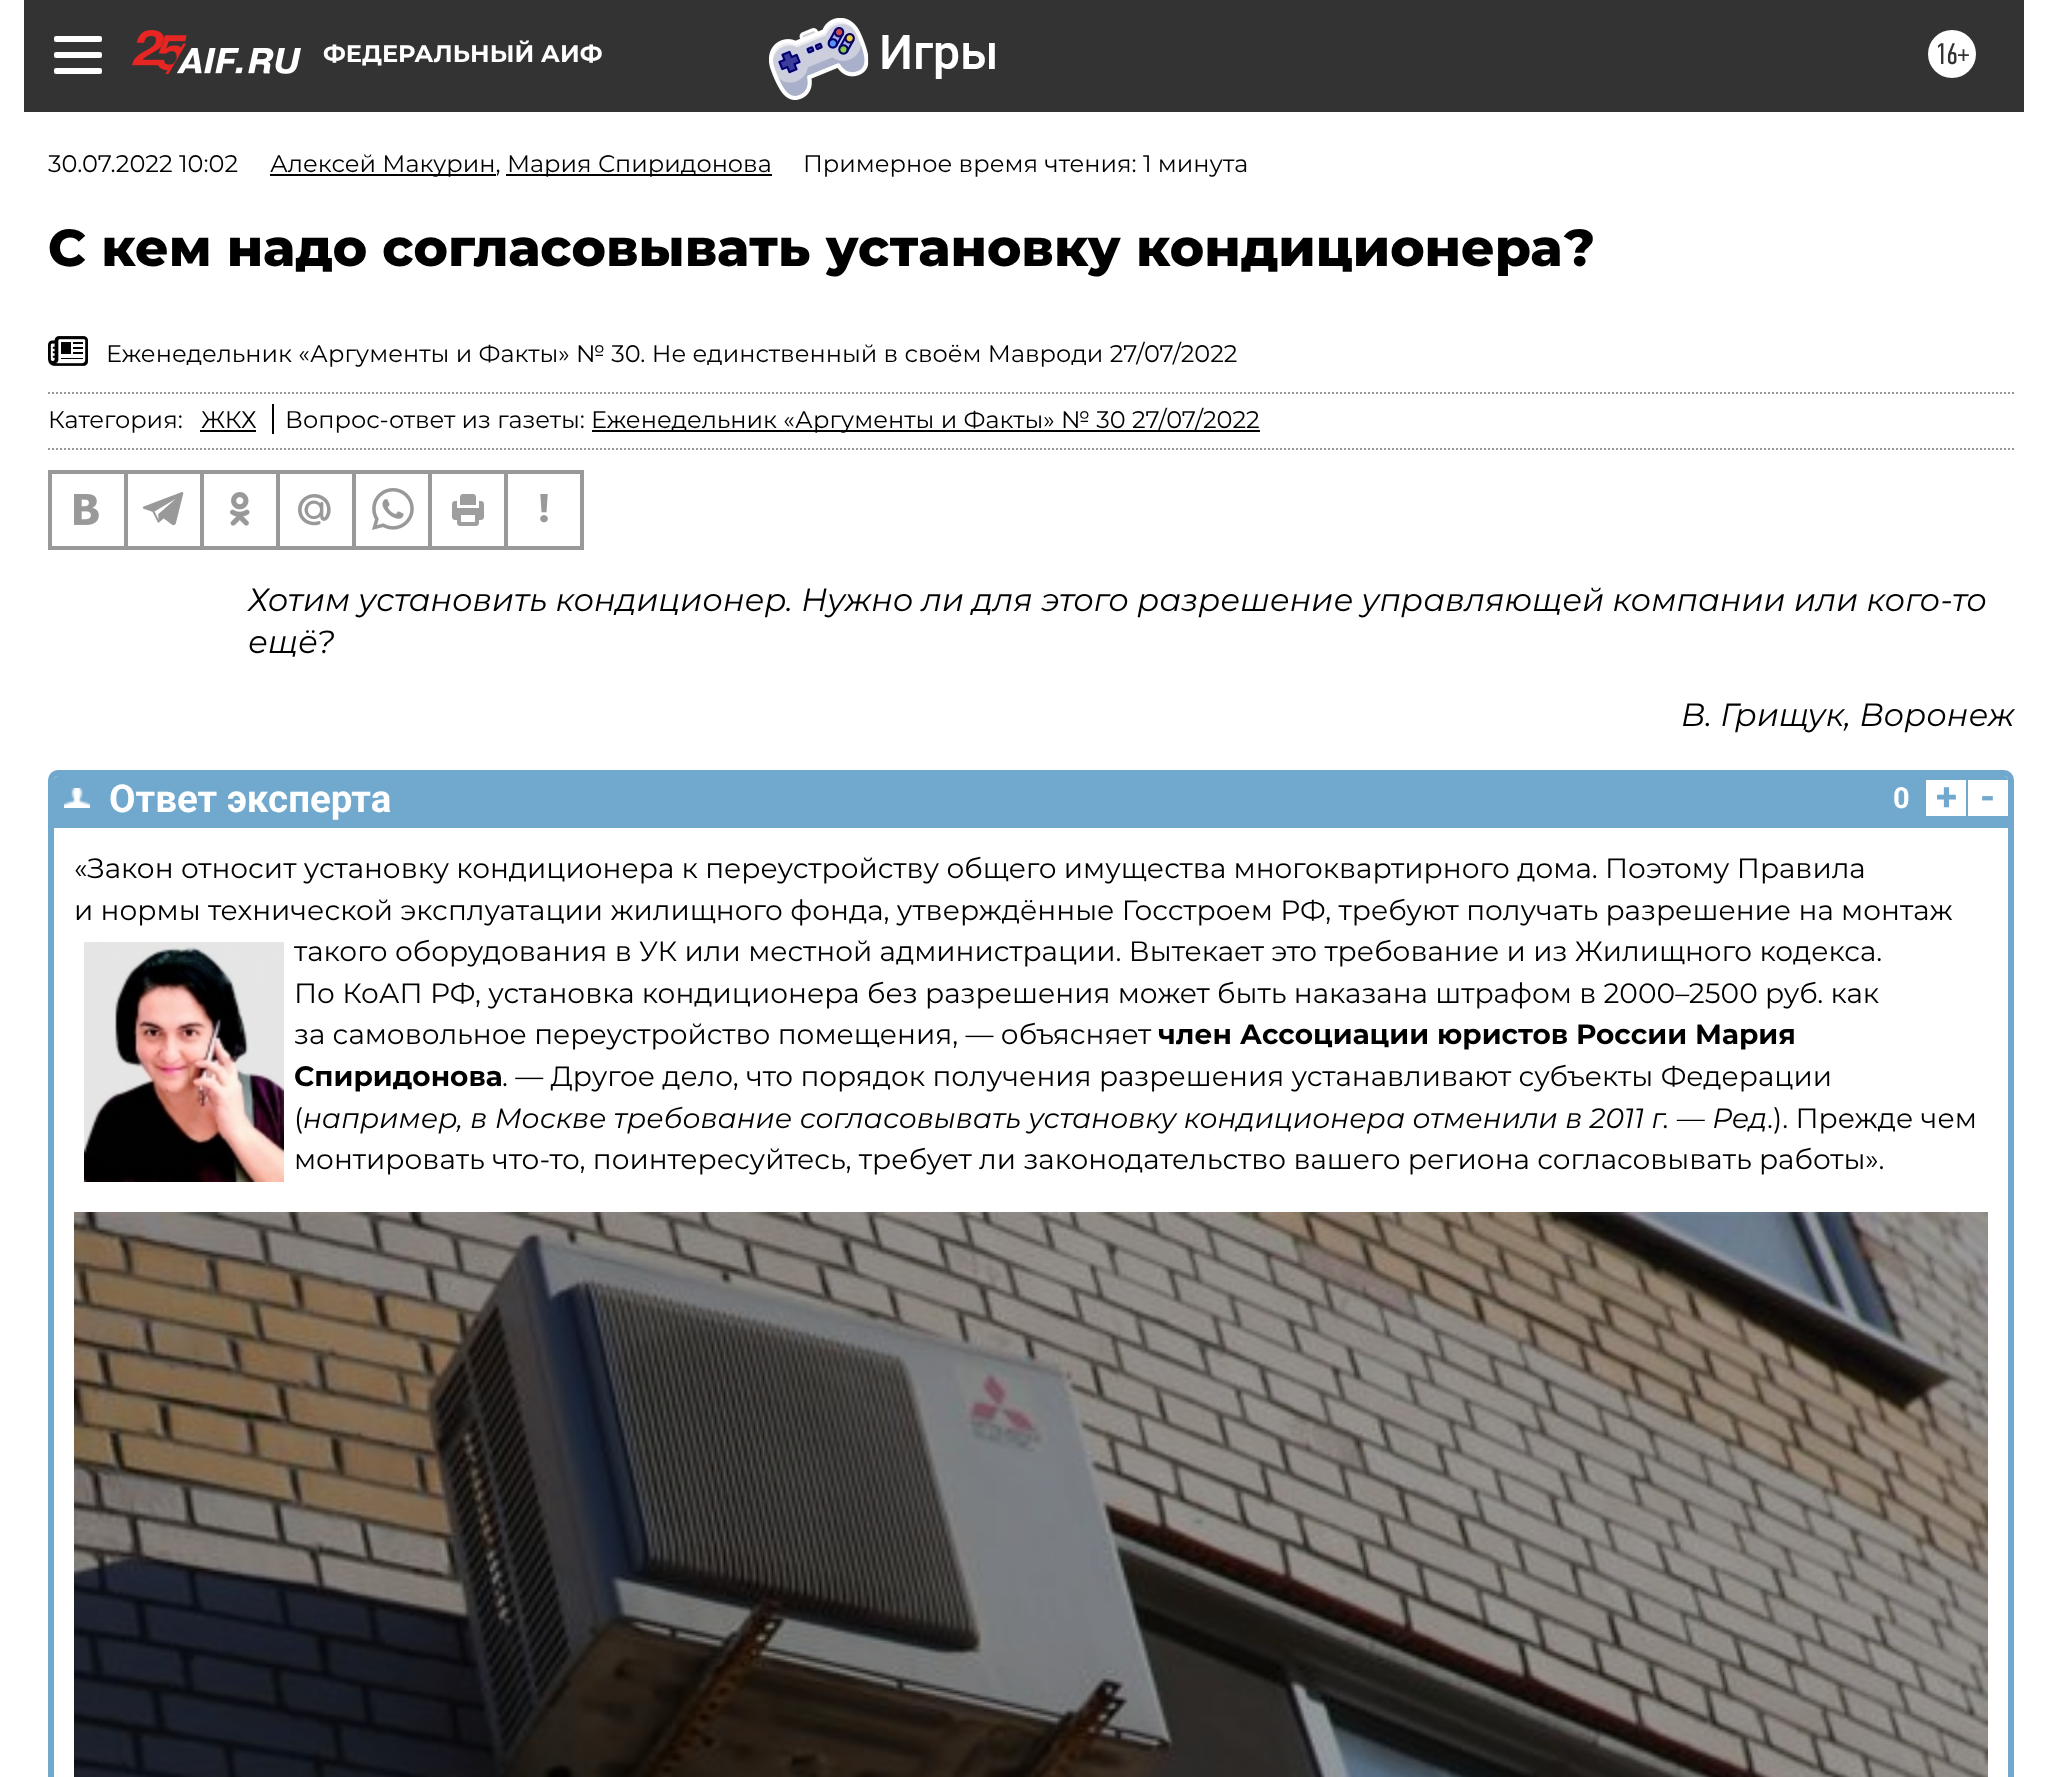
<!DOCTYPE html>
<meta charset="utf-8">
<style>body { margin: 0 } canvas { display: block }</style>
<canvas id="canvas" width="2045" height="1777"></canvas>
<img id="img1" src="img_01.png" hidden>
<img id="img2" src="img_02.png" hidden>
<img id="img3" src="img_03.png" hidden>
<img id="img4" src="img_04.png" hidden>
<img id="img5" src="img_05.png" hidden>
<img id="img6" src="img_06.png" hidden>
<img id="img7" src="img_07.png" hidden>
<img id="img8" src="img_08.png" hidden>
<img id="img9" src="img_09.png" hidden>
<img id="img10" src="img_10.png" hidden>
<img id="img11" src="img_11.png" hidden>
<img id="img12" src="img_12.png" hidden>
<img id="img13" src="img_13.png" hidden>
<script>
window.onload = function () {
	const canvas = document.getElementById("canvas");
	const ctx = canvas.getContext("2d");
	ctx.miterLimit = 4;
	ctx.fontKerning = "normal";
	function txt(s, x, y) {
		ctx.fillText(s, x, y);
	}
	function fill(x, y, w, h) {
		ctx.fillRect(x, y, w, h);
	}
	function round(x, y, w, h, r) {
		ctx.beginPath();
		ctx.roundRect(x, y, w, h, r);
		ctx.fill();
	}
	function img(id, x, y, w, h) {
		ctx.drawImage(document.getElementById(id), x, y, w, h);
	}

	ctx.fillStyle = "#FFFFFF";
	fill(0, 0, 2045, 1777);
	ctx.fillStyle = "#333333";
	fill(24, 0, 2000, 112);
	ctx.fillStyle = "#FFFFFF";
	round(54, 36, 48, 6, 2);
	round(54, 52, 48, 6, 2);
	round(54, 68, 48, 6, 2);
	img("img1", 132, 30, 169, 44);
	img("img2", 769, 18, 226, 82);
	ctx.beginPath();
	ctx.arc(1952, 54, 24, 0, Math.PI * 2);
	ctx.fill();
	ctx.fillStyle = "#000000";
	fill(270, 174, 226, 2);
	fill(506, 174, 266, 2);
	img("img3", 48, 336, 40, 30);
	ctx.beginPath();
	ctx.moveTo(48, 393);
	ctx.lineTo(2014, 393);
	ctx.strokeStyle = "#999999";
	ctx.lineWidth = 2;
	ctx.setLineDash([2, 2]);
	ctx.stroke();
	ctx.beginPath();
	ctx.moveTo(48, 449);
	ctx.lineTo(2014, 449);
	ctx.stroke();
	fill(200, 430, 56, 2);
	fill(272, 404, 2, 30);
	fill(592, 430, 668, 2);
	ctx.setLineDash([]);
	ctx.strokeRect(49, 471, 534, 78);
	ctx.strokeRect(51, 473, 74, 74);
	img("img4", 74, 494, 25, 31);
	ctx.strokeRect(127, 473, 74, 74);
	img("img5", 142, 492, 42, 34);
	ctx.strokeRect(203, 473, 74, 74);
	img("img6", 230, 492, 20, 34);
	ctx.strokeRect(279, 473, 74, 74);
	img("img7", 298, 494, 33, 32);
	ctx.strokeRect(355, 473, 74, 74);
	img("img8", 372, 488, 42, 42);
	ctx.strokeRect(431, 473, 74, 74);
	img("img9", 452, 494, 32, 32);
	ctx.strokeRect(507, 473, 74, 74);
	img("img10", 540, 494, 8, 29);
	ctx.beginPath();
	ctx.roundRect(51, 773, 1960, 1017, 7);
	ctx.strokeStyle = "#70A8CE";
	ctx.lineWidth = 6;
	ctx.stroke();
	ctx.fillStyle = "#70A8CE";
	ctx.beginPath();
	ctx.roundRect(54, 776, 1954, 52, [4, 4, 0, 0]);
	ctx.fill();
	img("img11", 64, 788, 26, 20);
	ctx.fillStyle = "#FFFFFF";
	fill(1926, 780, 40, 36);
	fill(1968, 780, 40, 36);
	img("img12", 84, 942, 200, 240);
	img("img13", 74, 1212, 1914, 565);
	ctx.font = "bold 24px Montserrat";
	txt("ФЕДЕРАЛЬНЫЙ АИФ", 323, 62);
	ctx.font = "30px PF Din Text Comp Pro";
	ctx.fillStyle = "#333333";
	txt("16+", 1935, 64);
	ctx.font = "24px Montserrat";
	ctx.fillStyle = "#000000";
	txt("30.07.2022 10:02", 48, 172);
	txt("Алексей Макурин,", 270, 172);
	txt("Мария Спиридонова", 507, 172);
	txt("Примерное время чтения: 1 минута", 803, 172);
	ctx.font = "800 52px Montserrat";
	txt("С кем надо согласовывать установку кондиционера?", 48, 266);
	ctx.font = "24px Montserrat";
	txt("Еженедельник «Аргументы и Факты» № 30. Не единственный в своём Мавроди 27/07/2022", 106, 362);
	txt("Категория:", 48, 428);
	txt("ЖКХ", 201, 428);
	txt("Вопрос-ответ из газеты:", 285, 428);
	txt("Еженедельник «Аргументы и Факты» № 30 27/07/2022", 591, 428);
	ctx.font = "italic 32px Montserrat";
	txt("Хотим установить кондиционер. Нужно ли для этого разрешение управляющей компании или кого-то", 248, 611);
	txt("ещё?", 248, 653);
	txt("В. Грищук, Воронеж", 1681, 726);
	ctx.font = "bold 38.5px Roboto";
	ctx.fillStyle = "#FFFFFF";
	txt("Ответ эксперта", 109, 812);
	ctx.font = "bold 29px Roboto";
	txt("0", 1893, 808);
	ctx.font = "bold 38.5px Roboto";
	ctx.fillStyle = "#70A8CE";
	txt("+", 1936, 810);
	txt("-", 1980, 810);
	ctx.font = "28px Montserrat";
	ctx.fillStyle = "#000000";
	txt("«Закон относит установку кондиционера к переустройству общего имущества многоквартирного дома. Поэтому Правила", 74, 878);
	txt("и нормы технической эксплуатации жилищного фонда, утверждённые Госстроем РФ, требуют получать разрешение на монтаж", 74, 920);
	txt("такого оборудования в УК или местной администрации. Вытекает это требование и из Жилищного кодекса.", 294, 961);
	txt("По КоАП РФ, установка кондиционера без разрешения может быть наказана штрафом в 2000–2500 руб. как", 294, 1003);
	txt("за самовольное переустройство помещения, — объясняет", 294, 1044);
	ctx.font = "bold 28px Montserrat";
	txt("член Ассоциации юристов России", 1158, 1044);
	txt("Мария", 1695, 1044);
	txt("Спиридонова", 294, 1086);
	ctx.font = "28px Montserrat";
	txt(". — Другое дело, что порядок получения разрешения устанавливают субъекты Федерации", 502, 1086);
	txt("(", 294, 1128);
	ctx.font = "italic 28px Montserrat";
	txt("например, в Москве требование согласовывать установку кондиционера отменили в 2011 г. — Ред", 303, 1128);
	ctx.font = "28px Montserrat";
	txt(".). Прежде чем", 1767, 1128);
	txt("монтировать что-то, поинтересуйтесь, требует ли законодательство вашего региона согласовывать работы».", 294, 1169);
};
</script>
